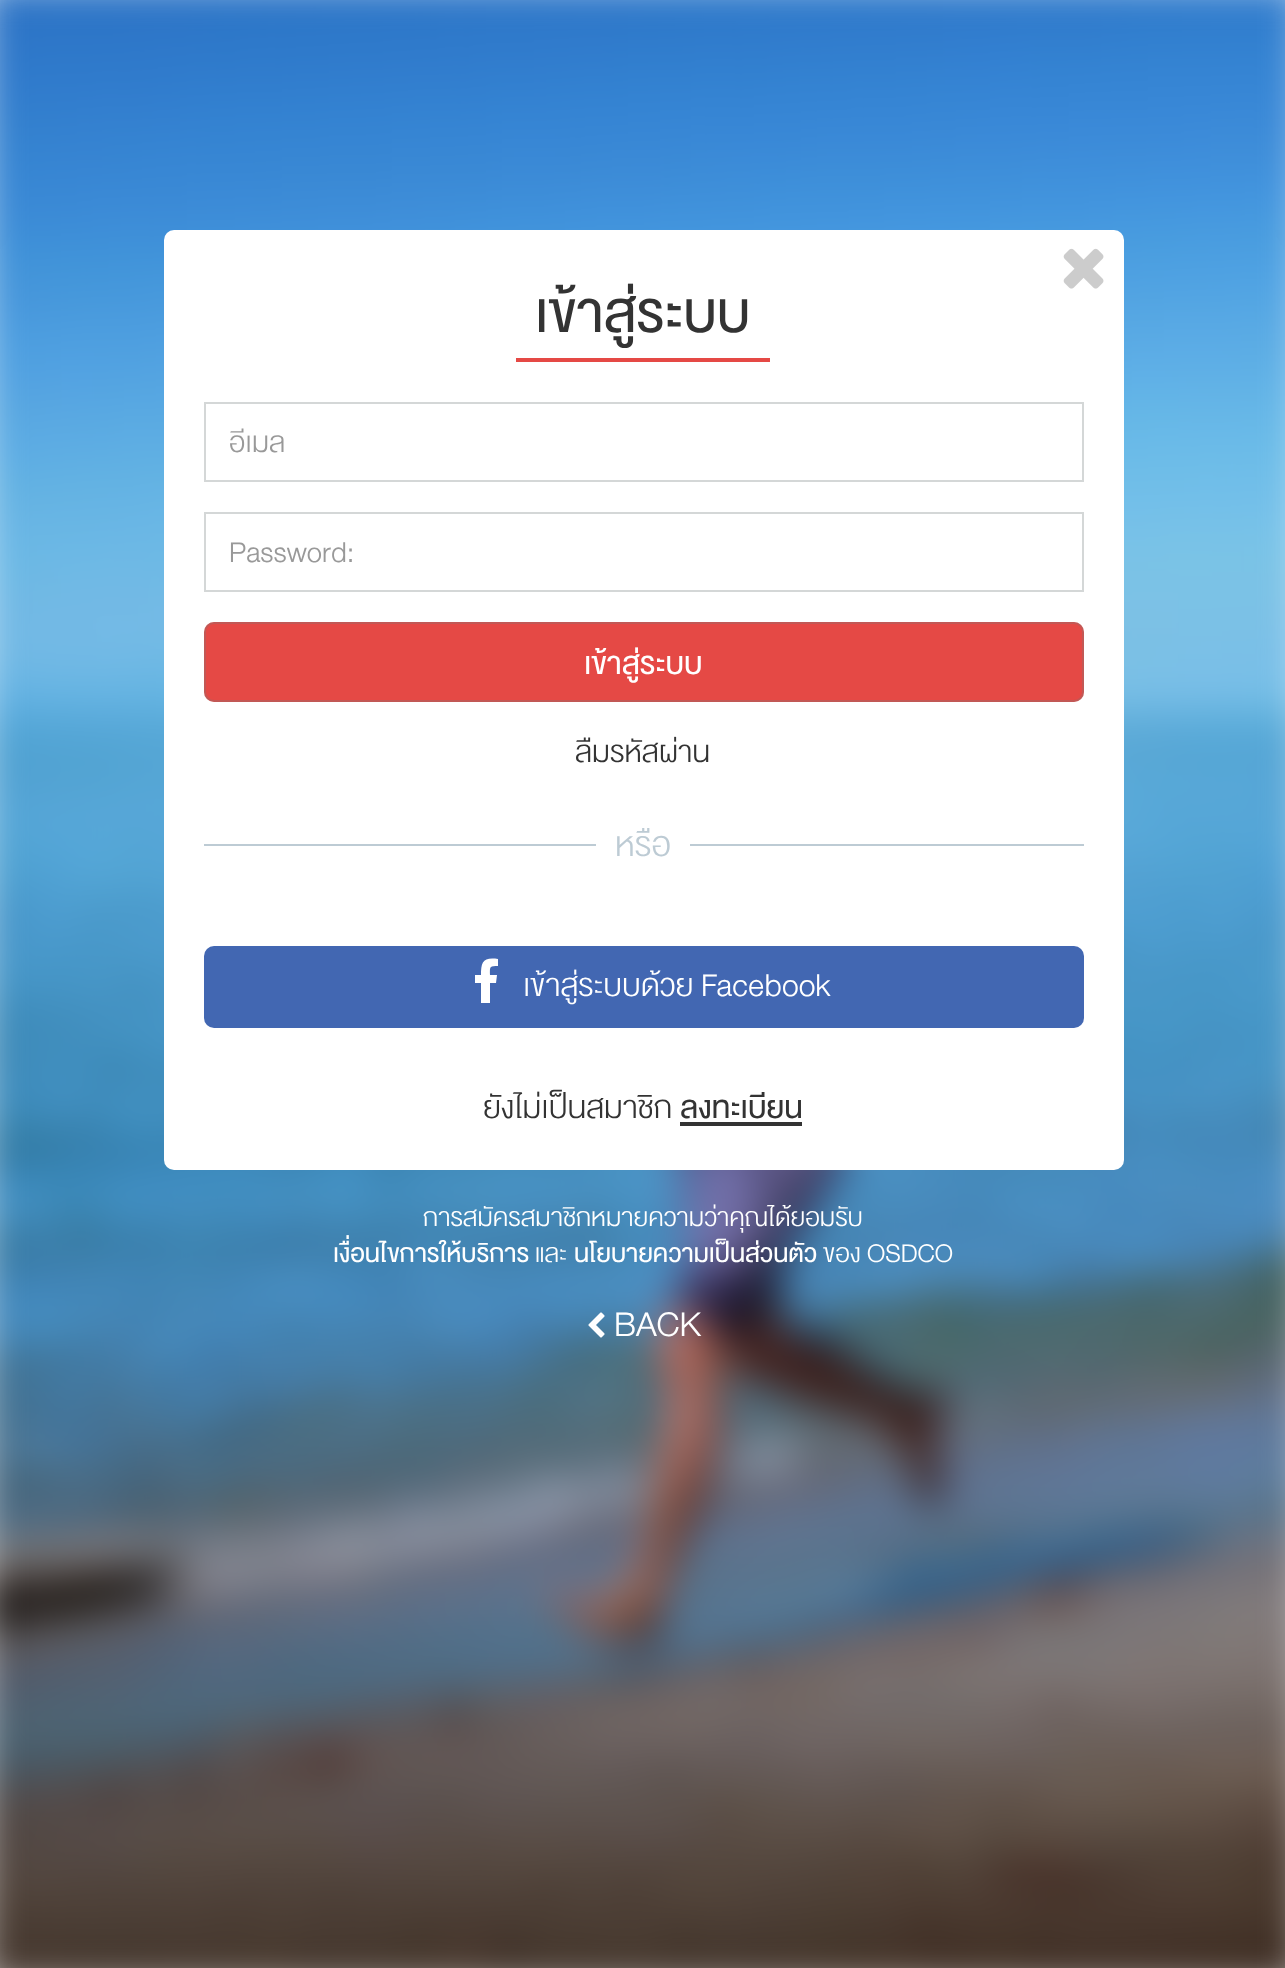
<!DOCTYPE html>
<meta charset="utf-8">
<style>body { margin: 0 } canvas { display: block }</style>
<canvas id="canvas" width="1285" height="1968"></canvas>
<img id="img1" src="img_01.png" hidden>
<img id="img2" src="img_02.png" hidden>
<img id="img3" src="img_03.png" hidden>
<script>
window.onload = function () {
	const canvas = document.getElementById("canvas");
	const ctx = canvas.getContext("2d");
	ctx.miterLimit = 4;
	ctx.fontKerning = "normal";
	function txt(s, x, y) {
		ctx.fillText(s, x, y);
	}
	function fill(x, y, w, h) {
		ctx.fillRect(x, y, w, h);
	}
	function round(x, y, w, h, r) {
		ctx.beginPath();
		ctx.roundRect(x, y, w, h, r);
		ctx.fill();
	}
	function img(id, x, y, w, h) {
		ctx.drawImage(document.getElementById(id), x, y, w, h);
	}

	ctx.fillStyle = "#FFFFFF";
	fill(0, 0, 1285, 1968);
	ctx.save();
	ctx.beginPath();
	ctx.rect(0, 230, 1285, 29);
	ctx.clip();
	ctx.fillStyle = "rgba(0, 0, 0, 0.1)";
	ctx.filter = "blur(16px)";
	ctx.beginPath();
	ctx.rect(0, 16, 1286, 230);
	ctx.fill();
	ctx.filter = "none";
	ctx.restore();
	img("img1", 0, 0, 1285, 1968);
	round(164, 230, 960, 940, 10);
	img("img2", 1063, 248, 41, 41);
	ctx.fillStyle = "#E54945";
	fill(516, 358, 254, 4);
	ctx.strokeStyle = "#D4D7D7";
	ctx.lineWidth = 2;
	ctx.strokeRect(205, 403, 878, 78);
	ctx.strokeRect(205, 513, 878, 78);
	round(204, 622, 880, 80, 10);
	ctx.beginPath();
	ctx.roundRect(205, 623, 878, 78, 9);
	ctx.strokeStyle = "rgba(111, 121, 122, 0.3)";
	ctx.stroke();
	ctx.fillStyle = "#BDCBD4";
	fill(204, 844, 880, 2);
	ctx.fillStyle = "#FFFFFF";
	fill(596, 844, 94, 2);
	ctx.fillStyle = "#4267B2";
	round(204, 946, 880, 82, 10);
	ctx.fillStyle = "#FFFFFF";
	ctx.beginPath();
	ctx.moveTo(498, 959);
	ctx.lineTo(498, 966);
	ctx.bezierCurveTo(489, 966, 490, 967, 490, 975);
	ctx.lineTo(497, 975);
	ctx.lineTo(496, 983);
	ctx.lineTo(490, 983);
	ctx.lineTo(490, 1003);
	ctx.lineTo(481, 1003);
	ctx.lineTo(481, 983);
	ctx.lineTo(475, 983);
	ctx.lineTo(475, 975);
	ctx.lineTo(481, 975);
	ctx.bezierCurveTo(481, 962, 483, 957, 498, 959);
	ctx.closePath();
	ctx.fill();
	ctx.fillStyle = "#333333";
	fill(680, 1122, 122, 4);
	img("img3", 588, 1312, 17, 26);
	ctx.font = "80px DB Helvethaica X";
	txt("เข้าสู่ระบบ", 535, 332);
	ctx.save();
	ctx.beginPath();
	ctx.rect(230, 418, 828, 48);
	ctx.clip();
	ctx.font = "300 40px DB Helvethaica X";
	ctx.fillStyle = "#999999";
	txt("อีเมล", 229, 452);
	ctx.restore();
	ctx.font = "300 40px DB Helvethaica X";
	ctx.fillStyle = "#999999";
	txt("Password:", 229, 562);
	ctx.font = "44px DB Helvethaica X";
	ctx.fillStyle = "#FFFFFF";
	txt("เข้าสู่ระบบ", 584, 674);
	ctx.font = "300 42px DB Helvethaica X";
	ctx.fillStyle = "#333333";
	txt("ลืมรหัสผ่าน", 575, 762);
	ctx.font = "300 48px DB Helvethaica X";
	ctx.fillStyle = "#BDCBD4";
	txt("หรือ", 615, 856);
	ctx.font = "300 44px DB Helvethaica X";
	ctx.fillStyle = "#FFFFFF";
	txt("เข้าสู่ระบบด้วย Facebook", 523, 996);
	ctx.fillStyle = "#333333";
	txt("ยังไม่เป็นสมาชิก", 483, 1118);
	ctx.font = "44px DB Helvethaica X";
	txt("ลงทะเบียน", 680, 1118);
	ctx.font = "300 36px DB Helvethaica X";
	ctx.fillStyle = "#FFFFFF";
	txt("การสมัครสมาชิกหมายความว่าคุณได้ยอมรับ", 423, 1226);
	ctx.font = "36px DB Helvethaica X";
	txt("เงื่อนไขการให้บริการ", 333, 1262);
	ctx.font = "300 36px DB Helvethaica X";
	txt("และ", 535, 1262);
	ctx.font = "36px DB Helvethaica X";
	txt("นโยบายความเป็นส่วนตัว", 574, 1262);
	ctx.font = "300 36px DB Helvethaica X";
	txt("ของ OSDCO", 823, 1262);
	ctx.font = "300 48px DB Helvethaica X";
	txt("BACK", 614, 1336);
};
</script>
